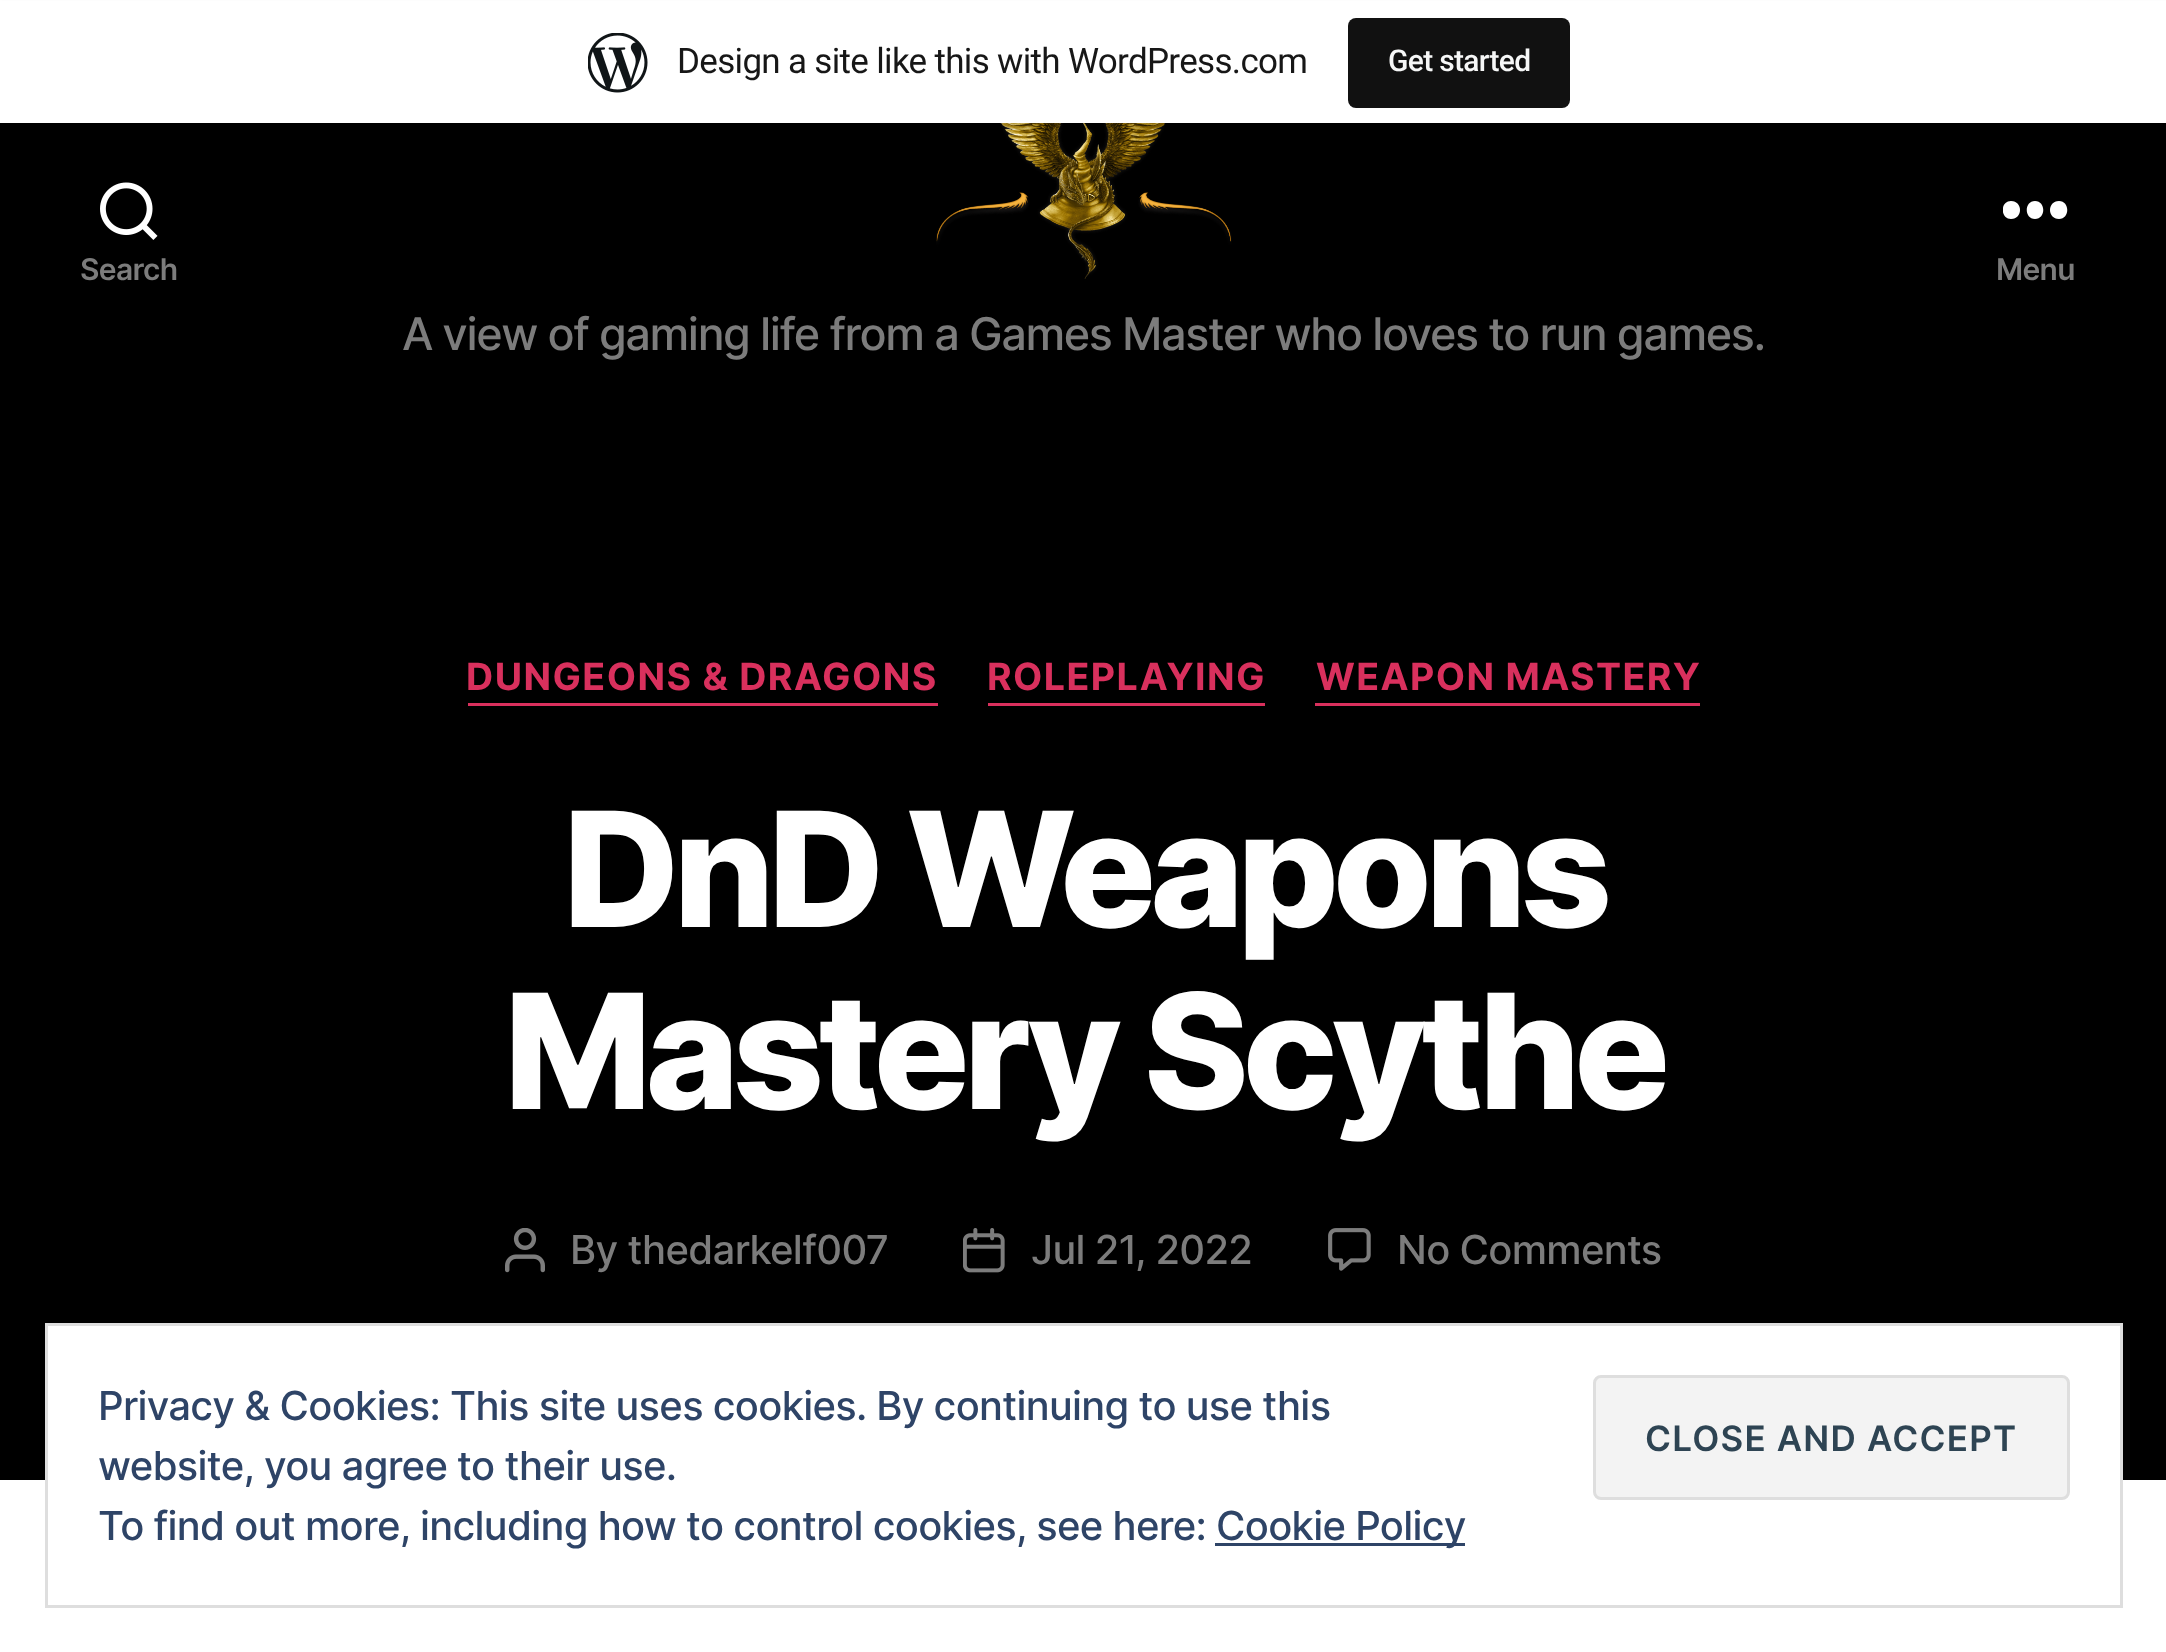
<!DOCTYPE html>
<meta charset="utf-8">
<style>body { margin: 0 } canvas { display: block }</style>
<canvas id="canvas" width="2166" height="1652"></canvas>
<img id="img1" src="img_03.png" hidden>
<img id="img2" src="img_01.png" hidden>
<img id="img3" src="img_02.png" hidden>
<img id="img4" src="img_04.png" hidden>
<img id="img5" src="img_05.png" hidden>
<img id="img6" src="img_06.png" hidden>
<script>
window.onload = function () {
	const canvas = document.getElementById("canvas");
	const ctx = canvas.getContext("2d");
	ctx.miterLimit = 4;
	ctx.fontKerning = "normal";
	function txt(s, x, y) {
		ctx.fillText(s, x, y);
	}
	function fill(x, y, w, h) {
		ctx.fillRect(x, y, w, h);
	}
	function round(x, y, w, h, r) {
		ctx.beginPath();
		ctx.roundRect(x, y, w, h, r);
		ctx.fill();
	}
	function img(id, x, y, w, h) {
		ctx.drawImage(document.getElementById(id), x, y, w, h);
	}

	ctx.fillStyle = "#FFFFFF";
	fill(0, 0, 2166, 1652);
	ctx.fillStyle = "#000000";
	fill(0, 123, 2166, 1357);
	img("img1", 936, 123, 296, 156);
	ctx.fillStyle = "rgba(0, 0, 0, 0.05)";
	ctx.filter = "blur(2.5px)";
	ctx.beginPath();
	ctx.rect(0, 3, 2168, 122);
	ctx.fill();
	ctx.filter = "none";
	ctx.fillStyle = "rgba(0, 0, 0, 0.08)";
	ctx.beginPath();
	ctx.moveTo(3, 122);
	ctx.lineTo(3, 130);
	ctx.lineTo(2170, 130);
	ctx.lineTo(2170, 8);
	ctx.lineTo(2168, 8);
	ctx.lineTo(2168, 122);
	ctx.closePath();
	ctx.fill();
	ctx.fillStyle = "#FFFFFF";
	fill(0, 1, 2166, 122);
	img("img2", 588, 33, 60, 60);
	ctx.fillStyle = "#111111";
	round(1348, 18, 222, 90, 8);
	img("img3", 100, 182, 58, 58);
	ctx.save();
	ctx.beginPath();
	ctx.rect(2003, 200, 65, 20);
	ctx.clip();
	ctx.fillStyle = "#FFFFFF";
	ctx.beginPath();
	ctx.moveTo(2011, 219);
	ctx.bezierCurveTo(2000, 219, 2000, 201, 2011, 201);
	ctx.bezierCurveTo(2023, 201, 2023, 219, 2011, 219);
	ctx.closePath();
	ctx.moveTo(2035, 219);
	ctx.bezierCurveTo(2024, 219, 2024, 201, 2035, 201);
	ctx.bezierCurveTo(2046, 201, 2046, 219, 2035, 219);
	ctx.closePath();
	ctx.moveTo(2059, 219);
	ctx.bezierCurveTo(2047, 219, 2047, 201, 2059, 201);
	ctx.bezierCurveTo(2070, 201, 2070, 219, 2059, 219);
	ctx.closePath();
	ctx.fill("evenodd");
	ctx.restore();
	ctx.fillStyle = "#D9305D";
	fill(468, 703, 470, 3);
	fill(988, 703, 277, 3);
	fill(1315, 703, 385, 3);
	img("img4", 505, 1228, 40, 45);
	img("img5", 963, 1228, 42, 45);
	img("img6", 1328, 1228, 43, 43);
	ctx.fillStyle = "#FFFFFF";
	fill(48, 1326, 2072, 154);
	ctx.strokeStyle = "#DEDEDE";
	ctx.lineWidth = 3;
	ctx.strokeRect(46.5, 1324.5, 2075, 282);
	ctx.fillStyle = "#F3F3F3";
	ctx.beginPath();
	ctx.roundRect(1594.5, 1376.5, 474, 122, 6.5);
	ctx.fill();
	ctx.stroke();
	ctx.fillStyle = "#2E4467";
	fill(1215, 1543, 250, 3);
	ctx.letterSpacing = "-0.68px";
	ctx.font = "35px Roboto";
	ctx.fillStyle = "#171717";
	txt("Design a site like this with WordPress.com", 677, 73);
	ctx.font = "500 30px Roboto";
	ctx.fillStyle = "#F6F7F7";
	txt("Get started", 1388, 71);
	ctx.font = "600 30px Inter";
	ctx.fillStyle = "#7C7C7C";
	txt("Search", 80, 280);
	txt("Menu", 1996, 280);
	ctx.letterSpacing = "-1.4px";
	ctx.font = "500 45px Inter";
	txt("A view of gaming life from a Games Master who loves to run games.", 402, 350);
	ctx.letterSpacing = "1.4px";
	ctx.font = "bold 37.5px Inter";
	ctx.fillStyle = "#D9305D";
	txt("DUNGEONS & DRAGONS", 466, 690);
	txt("ROLEPLAYING", 987, 690);
	txt("WEAPON MASTERY", 1316, 690);
	ctx.letterSpacing = "-6.6px";
	ctx.font = "800 160px Inter";
	ctx.fillStyle = "#FFFFFF";
	txt("DnD Weapons", 563, 927);
	txt("Mastery Scythe", 504, 1109);
	ctx.letterSpacing = "-0.68px";
	ctx.font = "500 40px Inter";
	ctx.fillStyle = "#7C7C7C";
	txt("By thedarkelf007", 570, 1264);
	txt("Jul 21, 2022", 1031, 1264);
	txt("No Comments", 1397, 1264);
	ctx.fillStyle = "#2E4467";
	txt("Privacy & Cookies: This site uses cookies. By continuing to use this", 98, 1420);
	ctx.letterSpacing = "1.2px";
	ctx.font = "600 35px Inter";
	ctx.fillStyle = "#2E4453";
	txt("CLOSE AND ACCEPT", 1645, 1451);
	ctx.letterSpacing = "-0.68px";
	ctx.font = "500 40px Inter";
	ctx.fillStyle = "#2E4467";
	txt("website, you agree to their use.", 98, 1480);
	txt("To find out more, including how to control cookies, see here:", 98, 1540);
	txt("Cookie Policy", 1216, 1540);
};
</script>
